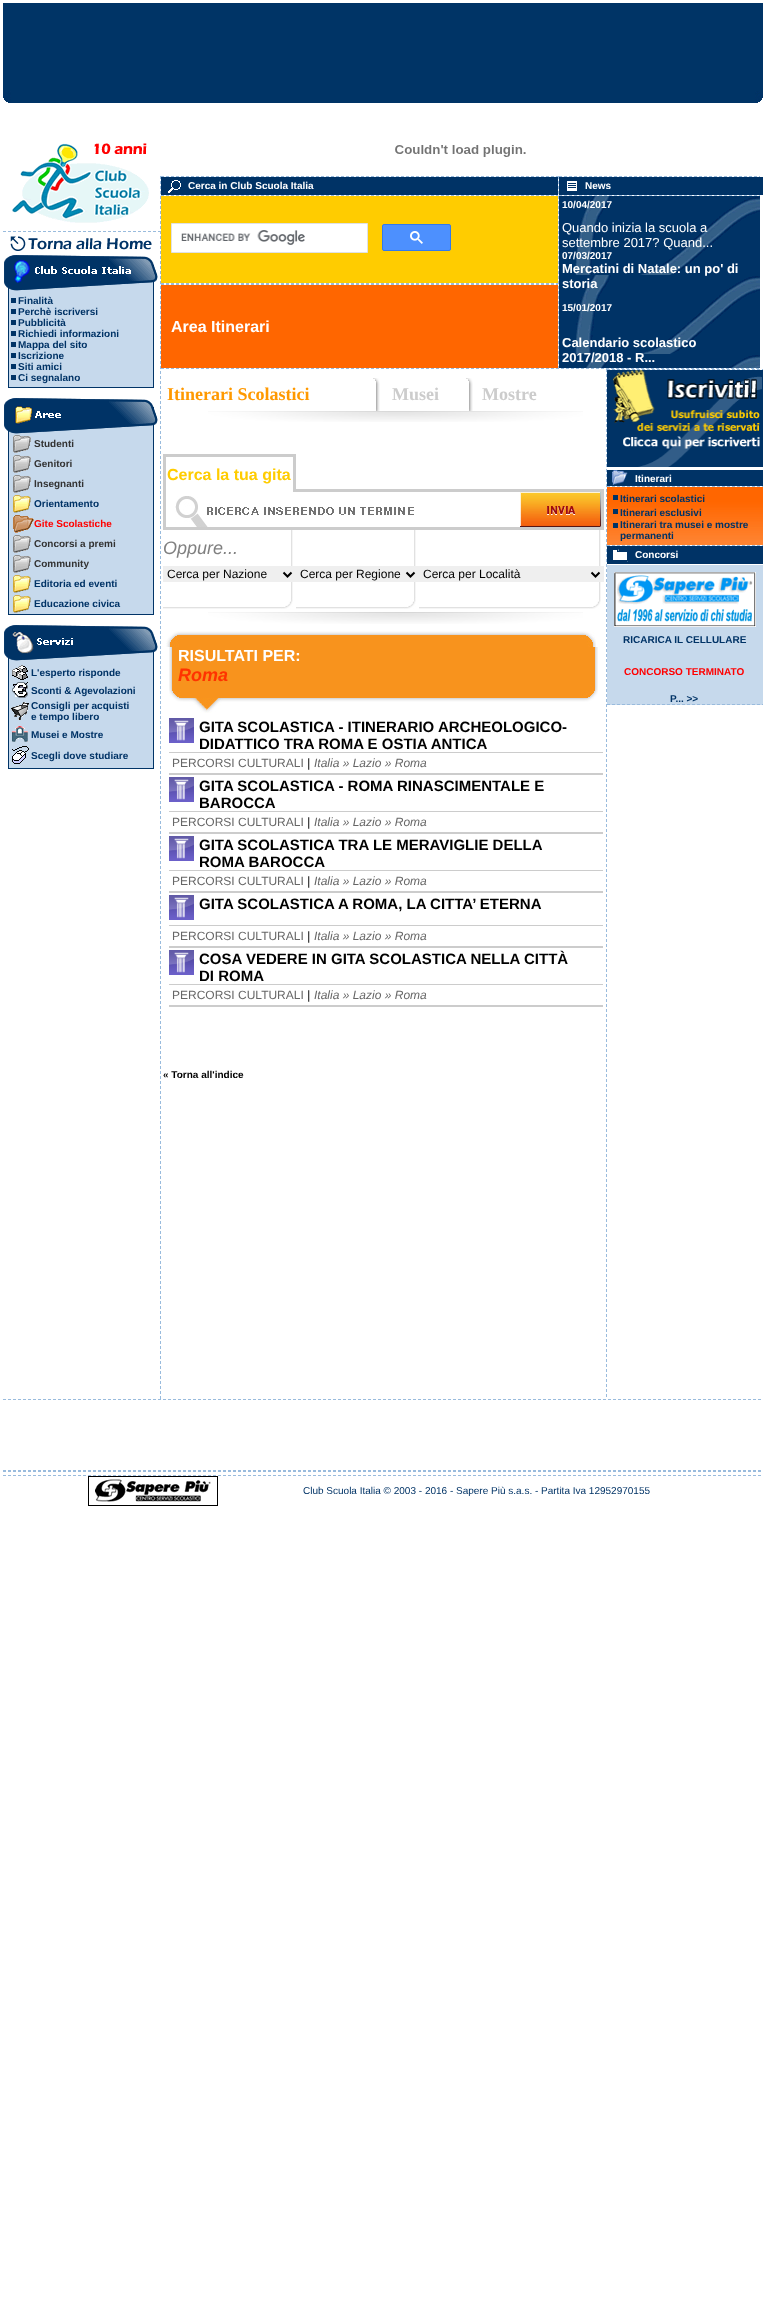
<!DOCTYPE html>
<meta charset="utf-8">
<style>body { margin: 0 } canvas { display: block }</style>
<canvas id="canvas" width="765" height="2300"></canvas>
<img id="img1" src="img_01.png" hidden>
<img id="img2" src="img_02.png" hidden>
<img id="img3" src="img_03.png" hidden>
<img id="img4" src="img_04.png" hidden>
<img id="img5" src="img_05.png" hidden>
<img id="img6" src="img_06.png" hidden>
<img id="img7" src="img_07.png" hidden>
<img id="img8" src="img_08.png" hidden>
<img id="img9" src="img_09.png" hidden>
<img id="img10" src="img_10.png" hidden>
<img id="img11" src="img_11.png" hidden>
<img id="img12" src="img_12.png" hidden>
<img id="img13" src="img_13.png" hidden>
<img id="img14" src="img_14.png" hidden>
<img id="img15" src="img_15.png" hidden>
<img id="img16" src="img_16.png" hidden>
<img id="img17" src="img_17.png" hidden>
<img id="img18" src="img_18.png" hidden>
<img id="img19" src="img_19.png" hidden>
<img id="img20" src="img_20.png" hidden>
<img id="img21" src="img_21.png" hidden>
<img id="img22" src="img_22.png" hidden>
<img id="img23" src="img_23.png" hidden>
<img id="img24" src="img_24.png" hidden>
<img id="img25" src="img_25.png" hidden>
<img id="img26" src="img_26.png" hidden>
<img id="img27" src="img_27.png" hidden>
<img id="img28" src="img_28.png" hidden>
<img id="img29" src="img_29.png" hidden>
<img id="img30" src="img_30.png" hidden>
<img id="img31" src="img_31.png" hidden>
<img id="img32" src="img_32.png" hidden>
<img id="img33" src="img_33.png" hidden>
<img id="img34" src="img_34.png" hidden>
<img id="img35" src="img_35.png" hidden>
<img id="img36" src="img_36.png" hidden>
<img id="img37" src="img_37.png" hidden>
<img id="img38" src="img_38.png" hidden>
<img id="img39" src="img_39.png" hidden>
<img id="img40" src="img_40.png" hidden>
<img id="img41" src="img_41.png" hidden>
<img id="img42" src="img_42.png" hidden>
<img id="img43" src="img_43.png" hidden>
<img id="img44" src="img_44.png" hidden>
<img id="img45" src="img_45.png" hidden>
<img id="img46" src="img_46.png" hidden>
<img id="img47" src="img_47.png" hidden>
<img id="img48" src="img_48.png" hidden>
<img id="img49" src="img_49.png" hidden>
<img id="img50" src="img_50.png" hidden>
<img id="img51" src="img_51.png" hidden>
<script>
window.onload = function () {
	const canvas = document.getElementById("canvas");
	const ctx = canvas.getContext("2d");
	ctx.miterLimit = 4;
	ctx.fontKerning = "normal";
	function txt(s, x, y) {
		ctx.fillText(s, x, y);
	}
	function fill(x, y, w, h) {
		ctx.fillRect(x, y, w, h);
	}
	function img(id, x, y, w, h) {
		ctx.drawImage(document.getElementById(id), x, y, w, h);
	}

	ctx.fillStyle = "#FFFFFF";
	fill(0, 0, 765, 2300);
	img("img1", 3, 3, 760, 100);
	img("img2", 20, 143, 127, 33);
	img("img3", 395, 145, 131, 12);
	img("img4", 160, 176, 1, 1223);
	img("img5", 161, 176, 397, 1);
	img("img6", 558, 176, 1, 192);
	img("img7", 559, 176, 201, 1);
	ctx.fillStyle = "#003366";
	fill(161, 177, 397, 18);
	img("img8", 168, 180, 13, 13);
	fill(559, 177, 204, 18);
	img("img9", 567, 181, 10, 10);
	img("img5", 161, 195, 397, 1);
	img("img7", 559, 195, 201, 1);
	img("img10", 161, 283, 397, 2);
	ctx.fillStyle = "#FFCC00";
	fill(161, 196, 397, 87);
	img("img11", 559, 196, 201, 172);
	ctx.fillStyle = "#FFFFFF";
	ctx.beginPath();
	ctx.rect(171.5, 223.5, 196, 29);
	ctx.fill();
	ctx.strokeStyle = "#DFE1E5";
	ctx.stroke();
	img("img12", 181, 230, 124, 15);
	ctx.fillStyle = "#4D90FE";
	ctx.beginPath();
	ctx.roundRect(382.5, 224.5, 68, 26, 1.5);
	ctx.fill();
	ctx.strokeStyle = "#3079ED";
	ctx.stroke();
	img("img13", 410, 231, 13, 13);
	ctx.fillStyle = "#FF6600";
	fill(161, 285, 397, 83);
	img("img14", 161, 368, 598, 1);
	img("img15", 12, 176, 137, 47);
	img("img16", 3, 231, 157, 1);
	img("img17", 10, 236, 142, 15);
	img("img18", 4, 255, 154, 36);
	ctx.fillStyle = "#013467";
	fill(8, 291, 1, 97);
	ctx.fillStyle = "#C6D9EC";
	fill(9, 291, 144, 96);
	ctx.fillStyle = "#003366";
	fill(11, 298, 5, 5);
	fill(11, 309, 5, 5);
	fill(11, 320, 5, 5);
	fill(11, 331, 5, 5);
	fill(11, 342, 5, 5);
	fill(11, 353, 5, 5);
	fill(11, 364, 5, 5);
	fill(11, 375, 5, 5);
	ctx.fillStyle = "#013467";
	fill(153, 291, 1, 97);
	fill(9, 387, 144, 1);
	img("img19", 4, 398, 154, 36);
	fill(8, 434, 1, 181);
	ctx.fillStyle = "#C6D9EC";
	fill(9, 434, 144, 180);
	img("img20", 13, 435, 18, 18);
	img("img20", 13, 455, 18, 18);
	img("img20", 13, 475, 18, 18);
	img("img21", 13, 495, 18, 18);
	img("img22", 13, 515, 21, 18);
	img("img20", 13, 535, 18, 18);
	img("img20", 13, 555, 18, 18);
	img("img21", 13, 575, 18, 18);
	img("img21", 13, 595, 18, 18);
	ctx.fillStyle = "#013467";
	fill(153, 434, 1, 181);
	fill(9, 614, 144, 1);
	img("img23", 4, 625, 154, 36);
	fill(8, 661, 1, 108);
	ctx.fillStyle = "#C6D9EC";
	fill(9, 661, 144, 107);
	img("img24", 12, 665, 16, 15);
	img("img25", 12, 682, 16, 16);
	img("img26", 11, 702, 18, 18);
	img("img27", 12, 726, 16, 16);
	img("img28", 12, 746, 17, 18);
	ctx.fillStyle = "#013467";
	fill(153, 661, 1, 108);
	fill(9, 768, 144, 1);
	img("img29", 373, 378, 7, 33);
	img("img29", 466, 378, 7, 33);
	img("img30", 208, 411, 375, 11);
	ctx.fillStyle = "#CCCCCC";
	fill(163, 454, 133, 3);
	fill(293, 454, 3, 38);
	fill(163, 454, 3, 38);
	fill(296, 489, 308, 3);
	fill(601, 492, 3, 38);
	fill(163, 527, 441, 3);
	fill(163, 492, 3, 38);
	img("img31", 175, 496, 239, 31);
	img("img32", 520, 492, 81, 35);
	img("img33", 291, 530, 2, 36);
	img("img33", 414, 530, 2, 36);
	img("img33", 599, 530, 2, 36);
	img("img34", 163, 582, 130, 27);
	ctx.fillStyle = "#EFEFEF";
	fill(163, 566, 441, 16);
	ctx.beginPath();
	ctx.moveTo(283.5, 572.5);
	ctx.lineTo(287.5, 576.5);
	ctx.lineTo(291.5, 572.5);
	ctx.strokeStyle = "#000000";
	ctx.lineWidth = 2;
	ctx.stroke();
	img("img35", 296, 582, 120, 27);
	ctx.beginPath();
	ctx.moveTo(406.5, 572.5);
	ctx.lineTo(410.5, 576.5);
	ctx.lineTo(414.5, 572.5);
	ctx.stroke();
	img("img36", 419, 582, 182, 27);
	ctx.beginPath();
	ctx.moveTo(591.5, 572.5);
	ctx.lineTo(595.5, 576.5);
	ctx.lineTo(599.5, 572.5);
	ctx.stroke();
	img("img37", 208, 612, 375, 12);
	img("img38", 166, 631, 430, 16);
	img("img39", 169, 647, 429, 66);
	img("img40", 169, 718, 25, 25);
	ctx.fillStyle = "#CCCCCC";
	fill(169, 752, 434, 1);
	fill(169, 773, 434, 2);
	img("img41", 169, 777, 25, 25);
	fill(169, 811, 434, 1);
	fill(169, 832, 434, 2);
	img("img41", 169, 836, 25, 25);
	fill(169, 870, 434, 1);
	fill(169, 891, 434, 2);
	img("img41", 169, 895, 25, 25);
	fill(169, 925, 434, 1);
	fill(169, 946, 434, 2);
	img("img41", 169, 950, 25, 25);
	fill(169, 984, 434, 1);
	fill(169, 1005, 434, 2);
	img("img42", 606, 369, 1, 1028);
	img("img43", 607, 369, 156, 1);
	img("img44", 607, 370, 156, 100);
	ctx.fillStyle = "#003366";
	fill(607, 470, 156, 16);
	img("img45", 612, 470, 16, 15);
	img("img43", 607, 486, 156, 1);
	img("img46", 607, 487, 156, 58);
	fill(613, 495, 5, 5);
	fill(613, 509, 5, 5);
	fill(613, 523, 5, 5);
	img("img43", 607, 545, 156, 1);
	fill(607, 546, 156, 18);
	img("img47", 613, 549, 15, 13);
	ctx.fillStyle = "#C6D9EC";
	fill(607, 565, 156, 139);
	img("img48", 614, 572, 142, 55);
	img("img49", 607, 704, 156, 1);
	img("img50", 3, 1399, 758, 1);
	img("img50", 3, 1470, 758, 1);
	img("img50", 3, 1471, 758, 1);
	img("img50", 3, 1475, 758, 1);
	img("img51", 88, 1476, 130, 30);
	ctx.font = "bold 10px Liberation Sans";
	ctx.fillStyle = "#FFFFFF";
	txt("Cerca in Club Scuola Italia", 188, 189);
	txt("News", 585, 189);
	txt("10/04/2017", 562, 208);
	ctx.font = "13px Liberation Sans";
	txt("Quando inizia la scuola a", 562, 232);
	txt("settembre 2017? Quand...", 562, 247);
	ctx.font = "bold 10px Liberation Sans";
	txt("07/03/2017", 562, 259);
	ctx.font = "bold 13px Liberation Sans";
	txt("Mercatini di Natale: un po' di", 562, 273);
	txt("storia", 562, 288);
	ctx.font = "bold 10px Liberation Sans";
	txt("15/01/2017", 562, 311);
	ctx.font = "bold 13px Liberation Sans";
	txt("Calendario scolastico", 562, 347);
	txt("2017/2018 - R...", 562, 362);
	ctx.font = "bold 16px Liberation Sans";
	txt("Area Itinerari", 171, 332);
	ctx.font = "bold 10px Liberation Sans";
	ctx.fillStyle = "#003366";
	txt("Finalità", 18, 304);
	txt("Perchè iscriversi", 18, 315);
	txt("Pubblicità", 18, 326);
	txt("Richiedi informazioni", 18, 337);
	txt("Mappa del sito", 18, 348);
	txt("Iscrizione", 18, 359);
	txt("Siti amici", 18, 370);
	txt("Ci segnalano", 18, 381);
	ctx.fillStyle = "#333333";
	txt("Studenti", 34, 447);
	txt("Genitori", 34, 467);
	txt("Insegnanti", 34, 487);
	ctx.fillStyle = "#003366";
	txt("Orientamento", 34, 507);
	ctx.fillStyle = "#FF0000";
	txt("Gite Scolastiche", 34, 527);
	ctx.fillStyle = "#333333";
	txt("Concorsi a premi", 34, 547);
	txt("Community", 34, 567);
	ctx.fillStyle = "#003366";
	txt("Editoria ed eventi", 34, 587);
	txt("Educazione civica", 34, 607);
	txt("L'esperto risponde", 31, 676);
	txt("Sconti & Agevolazioni", 31, 694);
	txt("Consigli per acquisti", 31, 709);
	txt("e tempo libero", 31, 720);
	txt("Musei e Mostre", 31, 738);
	txt("Scegli dove studiare", 31, 759);
	ctx.font = "bold 18px Liberation Serif";
	ctx.fillStyle = "#FF9900";
	txt("Itinerari Scolastici", 167, 400);
	ctx.fillStyle = "#CCCCCC";
	txt("Musei", 392, 400);
	txt("Mostre", 482, 400);
	ctx.font = "bold 16px Liberation Sans";
	ctx.fillStyle = "#FFCC00";
	txt("Cerca la tua gita", 167, 480);
	ctx.font = "italic 18px Liberation Sans";
	ctx.fillStyle = "#808080";
	txt("Oppure...", 163, 554);
	ctx.font = "12px Liberation Sans";
	ctx.fillStyle = "#000000";
	txt("Cerca per Nazione", 167, 578);
	txt("Cerca per Regione", 300, 578);
	txt("Cerca per Località", 423, 578);
	ctx.font = "bold 16px Liberation Sans";
	ctx.fillStyle = "#FFFFFF";
	txt("RISULTATI PER:", 178, 661);
	ctx.font = "italic bold 18px Liberation Sans";
	ctx.fillStyle = "#FF3300";
	txt("Roma", 178, 681);
	ctx.font = "bold 15px Liberation Sans";
	ctx.fillStyle = "#000000";
	txt("GITA SCOLASTICA - ITINERARIO ARCHEOLOGICO-", 199, 732);
	txt("DIDATTICO TRA ROMA E OSTIA ANTICA", 199, 749);
	ctx.font = "12px Liberation Sans";
	ctx.fillStyle = "#666666";
	txt("PERCORSI CULTURALI", 172, 767);
	ctx.font = "italic 12px Liberation Sans";
	ctx.fillStyle = "#000000";
	txt("|", 307, 767);
	ctx.fillStyle = "#666666";
	txt("Italia » Lazio » Roma", 314, 767);
	ctx.font = "bold 15px Liberation Sans";
	ctx.fillStyle = "#000000";
	txt("GITA SCOLASTICA - ROMA RINASCIMENTALE E", 199, 791);
	txt("BAROCCA", 199, 808);
	ctx.font = "12px Liberation Sans";
	ctx.fillStyle = "#666666";
	txt("PERCORSI CULTURALI", 172, 826);
	ctx.font = "italic 12px Liberation Sans";
	ctx.fillStyle = "#000000";
	txt("|", 307, 826);
	ctx.fillStyle = "#666666";
	txt("Italia » Lazio » Roma", 314, 826);
	ctx.font = "bold 15px Liberation Sans";
	ctx.fillStyle = "#000000";
	txt("GITA SCOLASTICA TRA LE MERAVIGLIE DELLA", 199, 850);
	txt("ROMA BAROCCA", 199, 867);
	ctx.font = "12px Liberation Sans";
	ctx.fillStyle = "#666666";
	txt("PERCORSI CULTURALI", 172, 885);
	ctx.font = "italic 12px Liberation Sans";
	ctx.fillStyle = "#000000";
	txt("|", 307, 885);
	ctx.fillStyle = "#666666";
	txt("Italia » Lazio » Roma", 314, 885);
	ctx.font = "bold 15px Liberation Sans";
	ctx.fillStyle = "#000000";
	txt("GITA SCOLASTICA A ROMA, LA CITTA’ ETERNA", 199, 909);
	ctx.font = "12px Liberation Sans";
	ctx.fillStyle = "#666666";
	txt("PERCORSI CULTURALI", 172, 940);
	ctx.font = "italic 12px Liberation Sans";
	ctx.fillStyle = "#000000";
	txt("|", 307, 940);
	ctx.fillStyle = "#666666";
	txt("Italia » Lazio » Roma", 314, 940);
	ctx.font = "bold 15px Liberation Sans";
	ctx.fillStyle = "#000000";
	txt("COSA VEDERE IN GITA SCOLASTICA NELLA CITTÀ", 199, 964);
	txt("DI ROMA", 199, 981);
	ctx.font = "12px Liberation Sans";
	ctx.fillStyle = "#666666";
	txt("PERCORSI CULTURALI", 172, 999);
	ctx.font = "italic 12px Liberation Sans";
	ctx.fillStyle = "#000000";
	txt("|", 307, 999);
	ctx.fillStyle = "#666666";
	txt("Italia » Lazio » Roma", 314, 999);
	ctx.font = "bold 10px Liberation Sans";
	ctx.fillStyle = "#000000";
	txt("« Torna all'indice", 163, 1078);
	ctx.fillStyle = "#FFFFFF";
	txt("Itinerari", 635, 482);
	ctx.fillStyle = "#003366";
	txt("Itinerari scolastici", 620, 502);
	txt("Itinerari esclusivi", 620, 516);
	txt("Itinerari tra musei e mostre", 620, 528);
	txt("permanenti", 620, 539);
	ctx.fillStyle = "#FFFFFF";
	txt("Concorsi", 635, 558);
	ctx.fillStyle = "#003366";
	txt("RICARICA IL CELLULARE", 623, 643);
	ctx.fillStyle = "#FF0000";
	txt("CONCORSO TERMINATO", 624, 675);
	ctx.fillStyle = "#003366";
	txt("P... >>", 670, 702);
	ctx.font = "10px Liberation Sans";
	txt("Club Scuola Italia © 2003 - 2016 - Sapere Più s.a.s. - Partita Iva 12952970155", 303, 1494);
};
</script>
